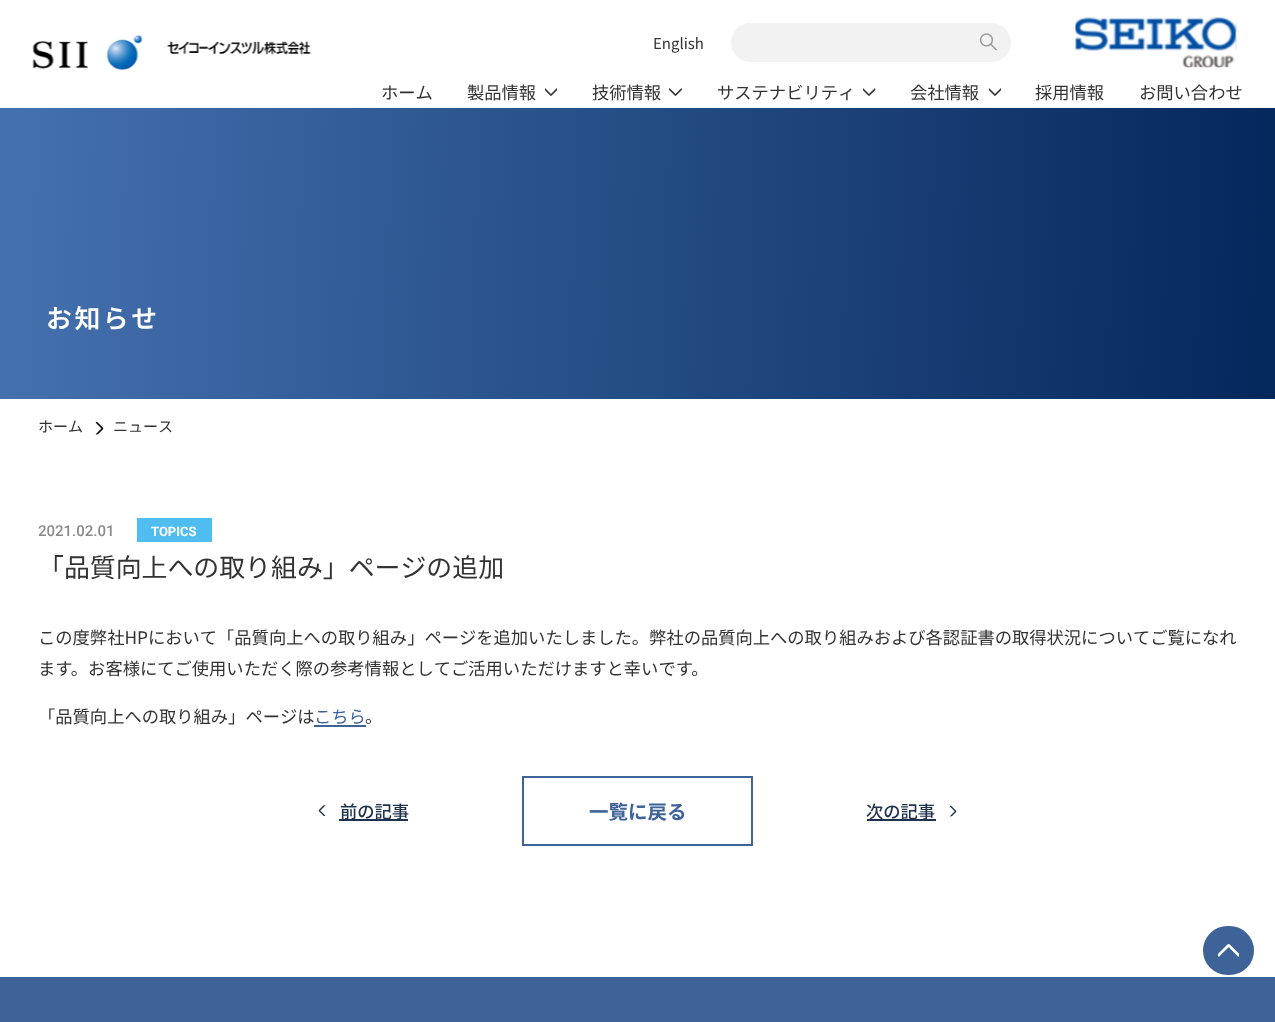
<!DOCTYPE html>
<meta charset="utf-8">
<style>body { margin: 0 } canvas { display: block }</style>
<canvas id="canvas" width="1275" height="1022"></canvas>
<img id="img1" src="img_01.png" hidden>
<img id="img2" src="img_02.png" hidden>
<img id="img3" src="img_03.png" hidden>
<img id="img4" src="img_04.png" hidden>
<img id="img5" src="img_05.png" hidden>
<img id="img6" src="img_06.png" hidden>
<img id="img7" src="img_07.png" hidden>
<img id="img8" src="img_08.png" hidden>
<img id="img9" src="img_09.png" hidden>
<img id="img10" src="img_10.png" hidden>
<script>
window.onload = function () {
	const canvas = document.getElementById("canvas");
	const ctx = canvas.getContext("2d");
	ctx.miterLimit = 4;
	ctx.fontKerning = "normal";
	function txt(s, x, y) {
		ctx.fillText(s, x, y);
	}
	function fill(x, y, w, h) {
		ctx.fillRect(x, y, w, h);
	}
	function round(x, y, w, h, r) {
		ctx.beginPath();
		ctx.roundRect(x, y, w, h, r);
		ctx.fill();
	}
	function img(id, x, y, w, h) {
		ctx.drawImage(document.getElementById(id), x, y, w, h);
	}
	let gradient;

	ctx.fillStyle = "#FFFFFF";
	fill(0, 0, 1275, 1022);
	img("img1", 32, 35, 279, 36);
	ctx.fillStyle = "#F2F2F2";
	round(731, 23, 280, 39, 19.5);
	img("img2", 979, 33, 18, 18);
	img("img3", 1075, 17, 162, 51);
	img("img4", 545, 88, 12, 8);
	img("img5", 669, 88, 13, 8);
	img("img6", 863, 88, 13, 8);
	img("img4", 989, 88, 12, 8);
	gradient = ctx.createLinearGradient(-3.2, 238, 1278, 269);
	gradient.addColorStop(0.01, "#4470AE");
	gradient.addColorStop(1, "#04285C");
	ctx.fillStyle = gradient;
	fill(0, 108, 1275, 291);
	img("img7", 95, 422, 9, 13);
	ctx.fillStyle = "#4FBDEF";
	fill(137, 518, 75, 24);
	ctx.fillStyle = "#3D6399";
	fill(314, 725, 52, 2);
	img("img8", 318, 805, 8, 12);
	ctx.fillStyle = "#1F324D";
	fill(339, 819, 69, 2);
	ctx.strokeStyle = "#3D6399";
	ctx.lineWidth = 2;
	ctx.strokeRect(523, 777, 229, 68);
	fill(867, 819, 69, 2);
	img("img9", 949, 805, 8, 12);
	ctx.fillStyle = "#3D6399";
	ctx.beginPath();
	ctx.roundRect(1204, 927, 49, 47, 23.5);
	ctx.fill();
	ctx.stroke();
	img("img10", 1218, 944, 21, 13);
	fill(0, 977, 1275, 45);
	ctx.font = "15px Noto Sans JP";
	ctx.fillStyle = "#333333";
	txt("English", 653, 49);
	ctx.font = "17.3px Noto Sans JP";
	txt("ホーム", 381, 99);
	txt("製品情報", 467, 99);
	txt("技術情報", 592, 99);
	txt("サステナビリティ", 717, 99);
	txt("会社情報", 910, 99);
	txt("採用情報", 1035, 99);
	txt("お問い合わせ", 1139, 99);
	ctx.letterSpacing = "2.5px";
	ctx.font = "600 25.9px Noto Sans JP";
	ctx.fillStyle = "#FFFFFF";
	txt("お知らせ", 46, 328);
	ctx.letterSpacing = "0px";
	ctx.font = "15px Noto Sans JP";
	ctx.fillStyle = "#333333";
	txt("ホーム", 38, 432);
	txt("ニュース", 113, 432);
	ctx.font = "500 15px Roboto";
	ctx.fillStyle = "#8A8A8A";
	txt("2021.02.01", 38, 536);
	ctx.font = "bold 13px Roboto";
	ctx.fillStyle = "#FFFFFF";
	txt("TOPICS", 151, 536);
	ctx.font = "25.9px Noto Sans JP";
	ctx.fillStyle = "#333333";
	txt("「品質向上への取り組み」ページの追加", 38, 577);
	ctx.font = "17.3px Noto Sans JP";
	txt("この度弊社HPにおいて「品質向上への取り組み」ページを追加いたしました。弊社の品質向上への取り組みおよび各認証書の取得状況についてご覧になれ", 38, 644);
	txt("ます。お客様にてご使用いただく際の参考情報としてご活用いただけますと幸いです。", 38, 675);
	txt("「品質向上への取り組み」ページは", 38, 723);
	ctx.fillStyle = "#3D6399";
	txt("こちら", 314, 723);
	ctx.fillStyle = "#333333";
	txt("。", 365, 723);
	ctx.font = "500 17.3px Noto Sans JP";
	ctx.fillStyle = "#1F324D";
	txt("前の記事", 340, 818);
	ctx.font = "bold 19.5px Noto Sans JP";
	ctx.fillStyle = "#3D6399";
	txt("一覧に戻る", 589, 819);
	ctx.font = "500 17.3px Noto Sans JP";
	ctx.fillStyle = "#1F324D";
	txt("次の記事", 866, 818);
};
</script>
